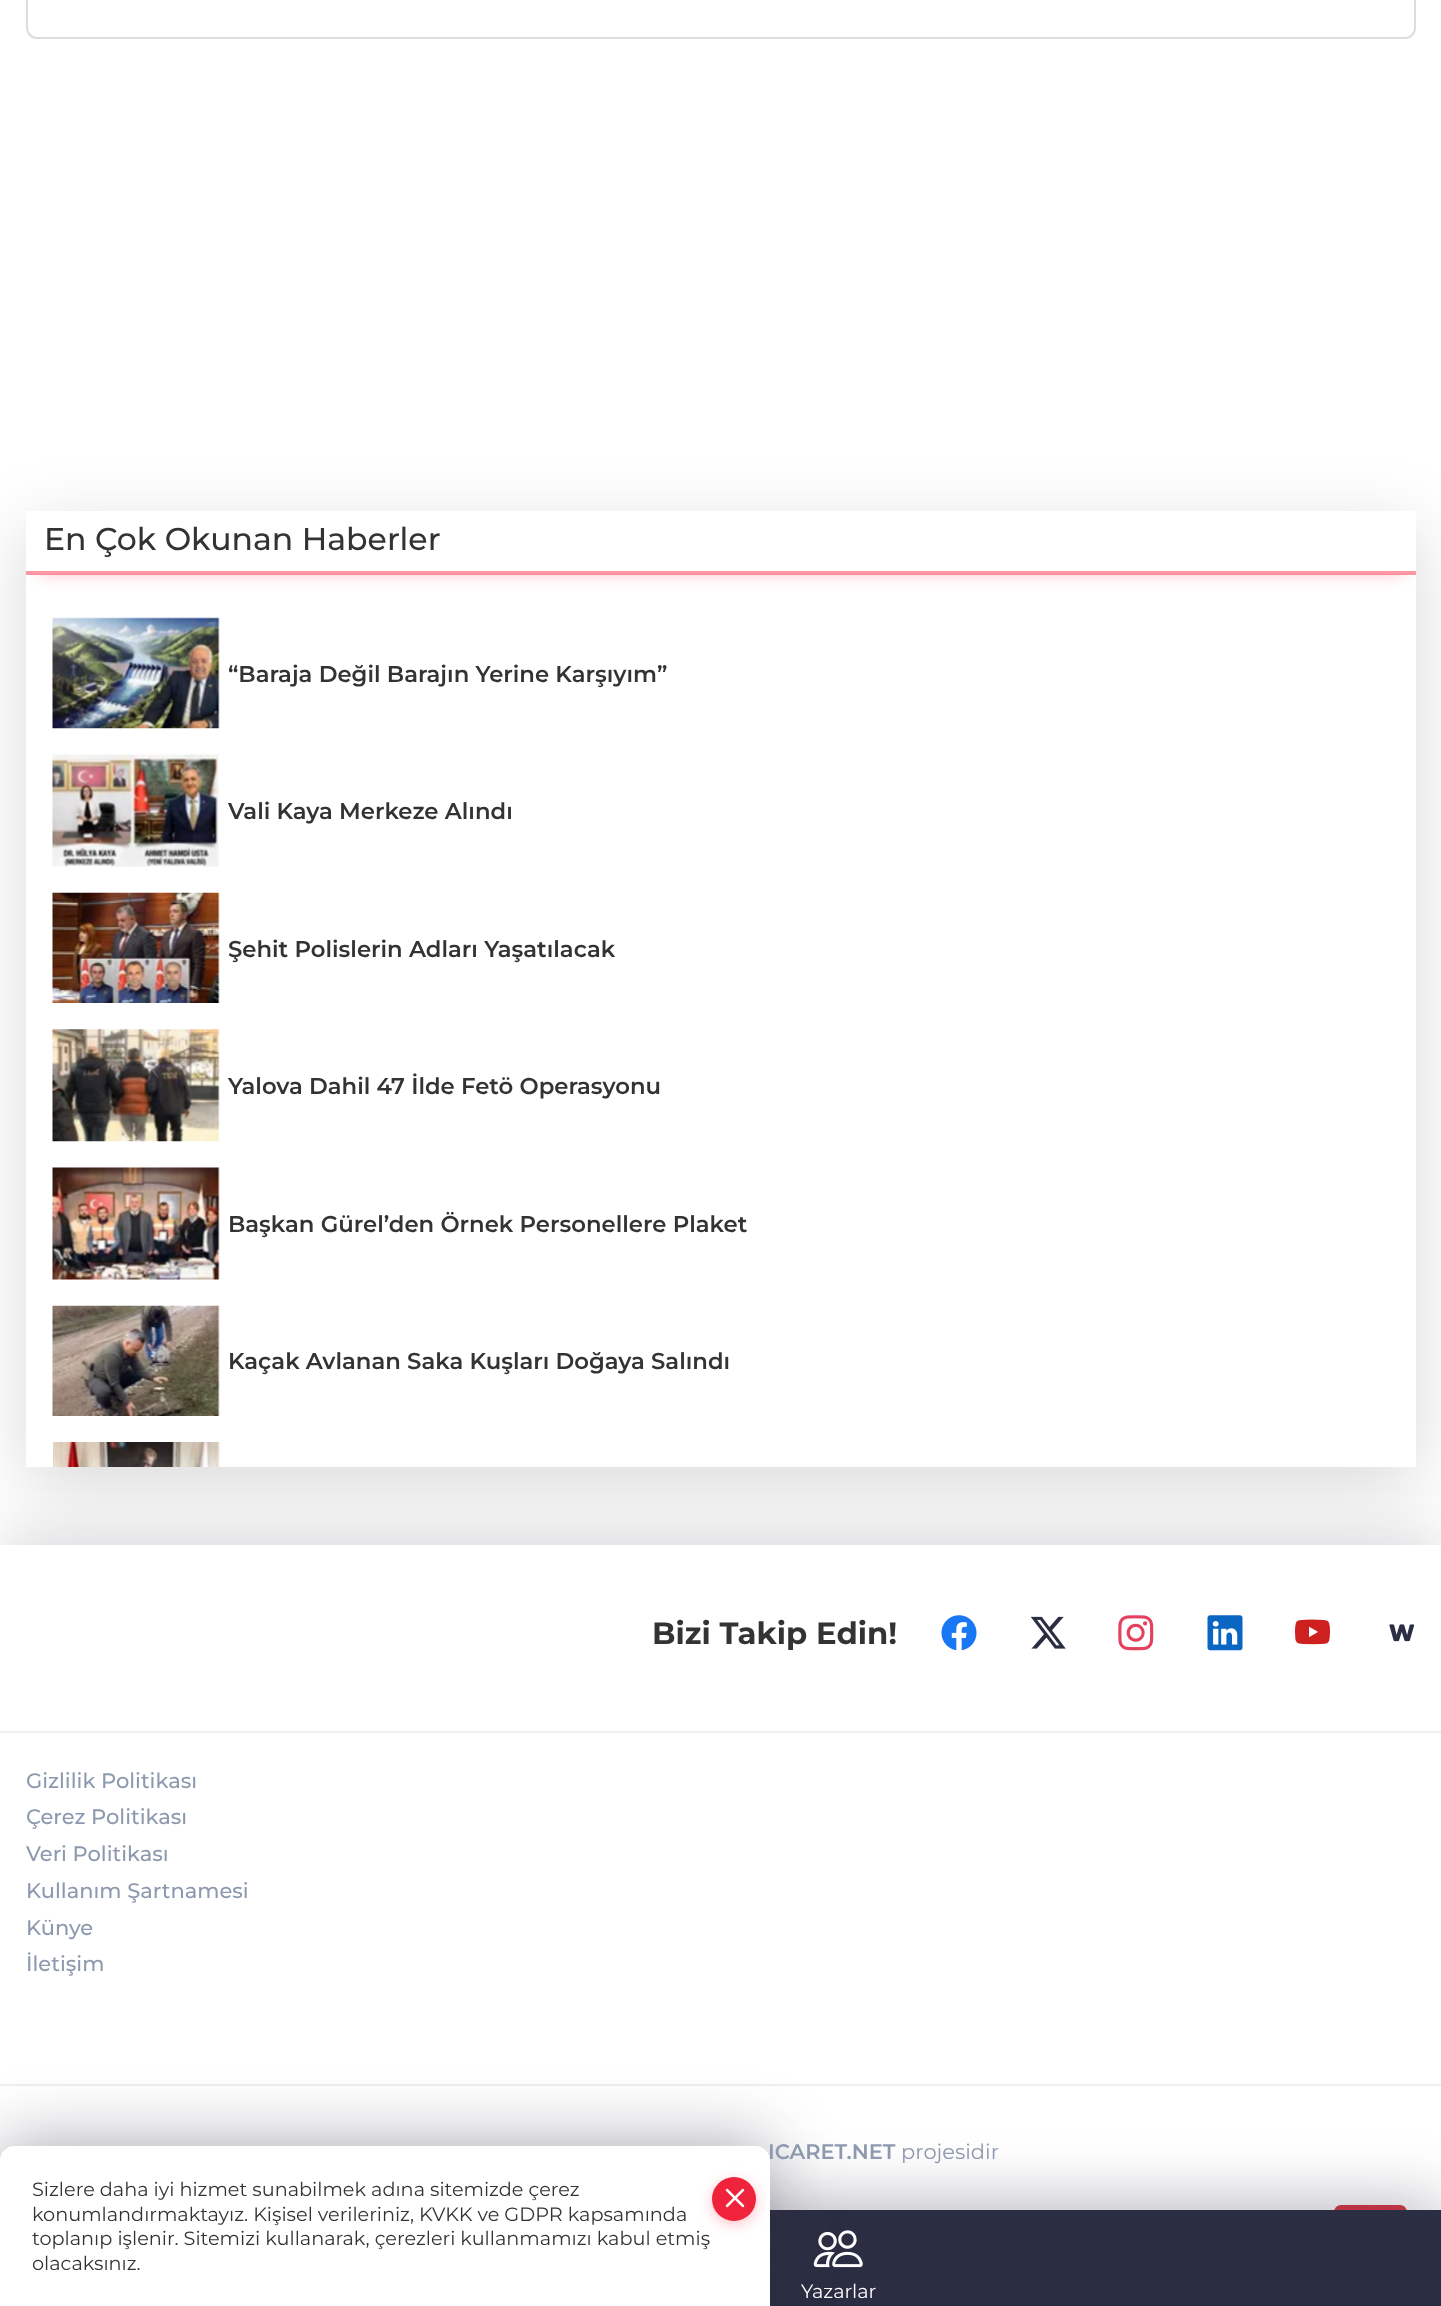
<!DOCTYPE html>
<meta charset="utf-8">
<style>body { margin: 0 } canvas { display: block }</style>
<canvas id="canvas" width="1441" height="2306"></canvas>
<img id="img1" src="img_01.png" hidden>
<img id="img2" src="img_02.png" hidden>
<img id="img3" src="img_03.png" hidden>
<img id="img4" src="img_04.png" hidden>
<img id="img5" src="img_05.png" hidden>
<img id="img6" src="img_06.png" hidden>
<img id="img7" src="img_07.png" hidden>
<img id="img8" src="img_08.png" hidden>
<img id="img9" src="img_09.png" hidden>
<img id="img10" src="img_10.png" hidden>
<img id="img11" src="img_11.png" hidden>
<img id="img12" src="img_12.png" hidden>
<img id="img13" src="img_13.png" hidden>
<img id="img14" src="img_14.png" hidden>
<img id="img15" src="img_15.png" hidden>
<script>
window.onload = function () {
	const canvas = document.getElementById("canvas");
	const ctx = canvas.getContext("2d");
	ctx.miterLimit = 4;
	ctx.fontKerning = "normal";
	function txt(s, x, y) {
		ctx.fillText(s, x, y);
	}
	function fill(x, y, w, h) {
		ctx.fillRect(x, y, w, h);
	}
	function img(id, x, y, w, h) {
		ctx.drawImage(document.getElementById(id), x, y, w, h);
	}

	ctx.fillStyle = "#FFFFFF";
	fill(0, 0, 1441, 2306);
	ctx.beginPath();
	ctx.roundRect(27, -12, 1388, 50, 10);
	ctx.strokeStyle = "#DDDDDD";
	ctx.lineWidth = 2;
	ctx.stroke();
	ctx.fillStyle = "rgba(0, 0, 0, 0.15)";
	ctx.filter = "blur(35px)";
	ctx.beginPath();
	ctx.rect(26, 529, 1390, 955);
	ctx.fill();
	ctx.filter = "none";
	ctx.fillStyle = "#FFFFFF";
	fill(26, 511, 1390, 956);
	ctx.save();
	ctx.beginPath();
	ctx.moveTo(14, 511);
	ctx.lineTo(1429, 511);
	ctx.lineTo(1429, 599);
	ctx.lineTo(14, 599);
	ctx.closePath();
	ctx.moveTo(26, 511);
	ctx.lineTo(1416, 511);
	ctx.lineTo(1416, 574);
	ctx.lineTo(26, 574);
	ctx.closePath();
	ctx.clip("evenodd");
	ctx.fillStyle = "rgba(255, 86, 106, 0.38)";
	ctx.filter = "blur(8px)";
	ctx.beginPath();
	ctx.rect(39, 536, 1365, 38);
	ctx.fill();
	ctx.filter = "none";
	ctx.restore();
	ctx.fillStyle = "rgba(255, 81, 103, 0.6)";
	fill(26, 571, 1390, 4);
	img("img1", 52, 617, 168, 112);
	img("img2", 52, 754, 167, 113);
	img("img3", 52, 892, 168, 111);
	img("img4", 52, 1029, 168, 113);
	img("img5", 52, 1167, 168, 113);
	img("img6", 52, 1305, 168, 111);
	img("img7", 53, 1442, 167, 25);
	ctx.fillStyle = "rgba(43, 45, 66, 0.2)";
	ctx.filter = "blur(33px)";
	ctx.beginPath();
	ctx.rect(0, 1540, 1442, 761);
	ctx.fill();
	ctx.filter = "none";
	ctx.fillStyle = "#FFFFFF";
	fill(0, 1545, 1441, 665);
	ctx.fillStyle = "#EFEFEF";
	fill(0, 1731, 1441, 2);
	img("img8", 941, 1615, 36, 36);
	img("img9", 1030, 1616, 36, 33);
	img("img10", 1118, 1615, 36, 36);
	img("img11", 1207, 1615, 36, 36);
	img("img12", 1295, 1619, 35, 26);
	img("img13", 1389, 1624, 26, 18);
	fill(0, 2084, 1441, 2);
	ctx.fillStyle = "#DC3545";
	ctx.beginPath();
	ctx.roundRect(1335, 2206, 71, 65, 6);
	ctx.fill();
	ctx.strokeStyle = "#DC3545";
	ctx.stroke();
	ctx.fillStyle = "rgba(43, 45, 66, 0.36)";
	ctx.filter = "blur(33px)";
	ctx.beginPath();
	ctx.rect(0, 2205, 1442, 96);
	ctx.fill();
	ctx.filter = "none";
	ctx.fillStyle = "#2B2D42";
	fill(770, 2210, 671, 96);
	img("img14", 813, 2230, 50, 38);
	ctx.fillStyle = "rgba(43, 45, 66, 0.36)";
	ctx.filter = "blur(33px)";
	ctx.beginPath();
	ctx.roundRect(0, 2140, 770, 161, 14);
	ctx.fill();
	ctx.filter = "none";
	ctx.fillStyle = "#FFFFFF";
	ctx.beginPath();
	ctx.moveTo(14, 2146);
	ctx.lineTo(756, 2146);
	ctx.bezierCurveTo(763.5, 2146, 770, 2152.5, 770, 2160);
	ctx.lineTo(770, 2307);
	ctx.lineTo(0, 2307);
	ctx.lineTo(0, 2160);
	ctx.bezierCurveTo(0, 2152.5, 6.5, 2146, 14, 2146);
	ctx.closePath();
	ctx.fill();
	ctx.fillStyle = "rgba(255, 86, 106, 0.38)";
	ctx.filter = "blur(7px)";
	ctx.beginPath();
	ctx.roundRect(712, 2181, 44, 43, 21.5);
	ctx.fill();
	ctx.filter = "none";
	ctx.fillStyle = "#EF233C";
	ctx.beginPath();
	ctx.arc(734, 2199, 22, 0, Math.PI * 2);
	ctx.fill();
	img("img15", 725, 2188, 20, 20);
	ctx.font = "500 31.5px Montserrat";
	ctx.fillStyle = "#333333";
	txt("En Çok Okunan Haberler", 44, 550);
	ctx.font = "600 22.75px Montserrat";
	txt("“Baraja Değil Barajın Yerine Karşıyım”", 228, 682);
	txt("Vali Kaya Merkeze Alındı", 228, 819);
	txt("Şehit Polislerin Adları Yaşatılacak", 228, 957);
	txt("Yalova Dahil 47 İlde Fetö Operasyonu", 228, 1094);
	txt("Başkan Gürel’den Örnek Personellere Plaket", 228, 1232);
	txt("Kaçak Avlanan Saka Kuşları Doğaya Salındı", 228, 1369);
	ctx.font = "bold 30.75px Montserrat";
	txt("Bizi Takip Edin!", 652, 1644);
	ctx.font = "500 21px Montserrat";
	ctx.fillStyle = "#8D99AE";
	txt("Gizlilik Politikası", 26, 1788);
	txt("Çerez Politikası", 26, 1824);
	txt("Veri Politikası", 26, 1861);
	txt("Kullanım Şartnamesi", 26, 1898);
	txt("Künye", 26, 1935);
	txt("İletişim", 26, 1971);
	ctx.font = "600 21px Montserrat";
	txt("ICARET.NET", 768, 2159);
	ctx.font = "21px Montserrat";
	txt("projesidir", 901, 2159);
	ctx.font = "19.25px Montserrat";
	ctx.fillStyle = "#FFFFFF";
	txt("Yazarlar", 801, 2298);
	ctx.fillStyle = "#333333";
	txt("Sizlere daha iyi hizmet sunabilmek adına sitemizde çerez", 32, 2196);
	txt("konumlandırmaktayız. Kişisel verileriniz, KVKK ve GDPR kapsamında", 32, 2221);
	txt("toplanıp işlenir. Sitemizi kullanarak, çerezleri kullanmamızı kabul etmiş", 32, 2245);
	txt("olacaksınız.", 32, 2270);
};
</script>
